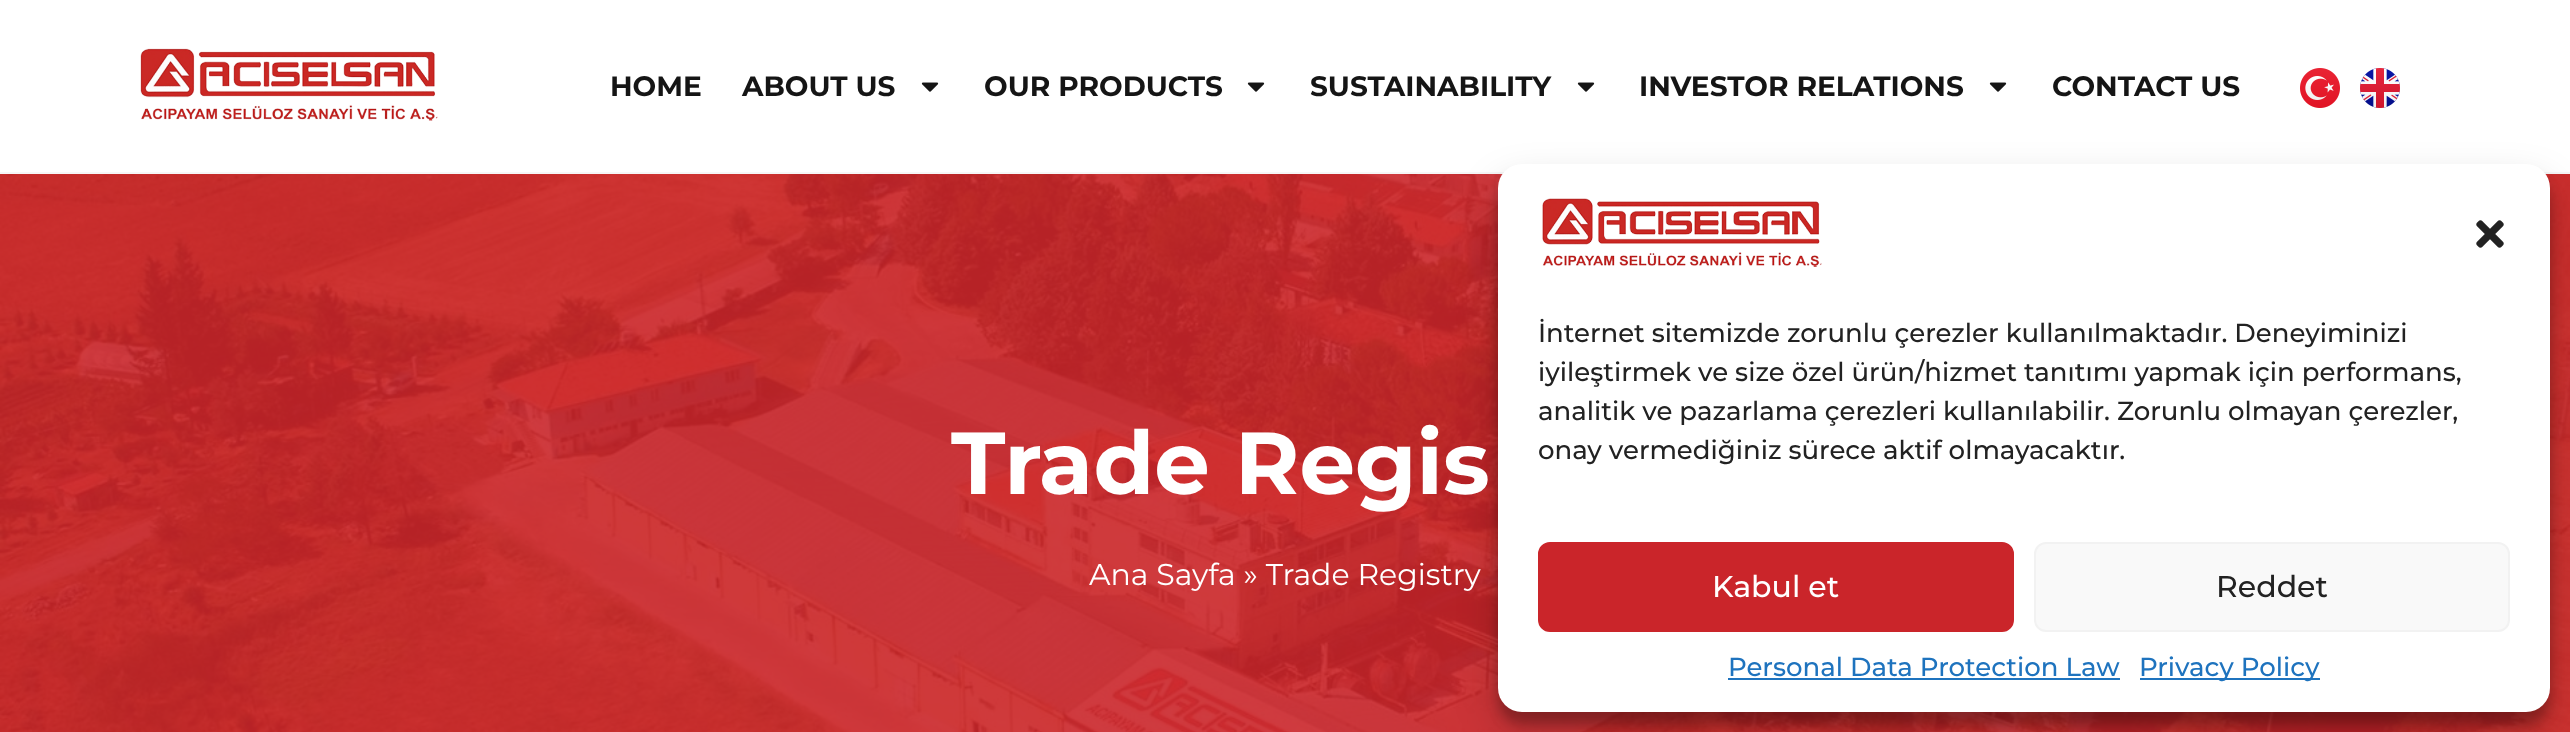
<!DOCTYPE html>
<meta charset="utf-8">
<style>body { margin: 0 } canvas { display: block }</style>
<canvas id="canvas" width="2570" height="732"></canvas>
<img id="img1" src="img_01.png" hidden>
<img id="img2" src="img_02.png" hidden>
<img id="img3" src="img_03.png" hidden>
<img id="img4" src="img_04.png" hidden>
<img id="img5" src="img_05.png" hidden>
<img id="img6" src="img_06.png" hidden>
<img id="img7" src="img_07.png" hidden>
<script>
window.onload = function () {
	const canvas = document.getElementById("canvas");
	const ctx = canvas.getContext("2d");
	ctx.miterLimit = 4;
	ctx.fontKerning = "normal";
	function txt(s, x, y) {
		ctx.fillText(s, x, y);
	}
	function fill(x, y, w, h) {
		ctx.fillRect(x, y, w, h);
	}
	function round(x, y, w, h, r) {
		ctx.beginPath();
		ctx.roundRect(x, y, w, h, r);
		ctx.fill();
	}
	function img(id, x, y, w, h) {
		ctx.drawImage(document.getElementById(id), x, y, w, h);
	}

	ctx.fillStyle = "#FFFFFF";
	fill(0, 0, 2570, 732);
	ctx.fillStyle = "#F6F6F6";
	fill(0, 172, 2570, 2);
	img("img1", 140, 48, 298, 73);
	img("img2", 921, 82, 18, 10);
	img("img2", 1247, 82, 18, 10);
	img("img2", 1577, 82, 18, 10);
	img("img2", 1989, 82, 18, 10);
	img("img3", 2300, 68, 40, 40);
	img("img4", 2360, 68, 40, 40);
	img("img5", 0, 174, 2570, 558);
	ctx.fillStyle = "rgba(0, 0, 0, 0.23)";
	ctx.filter = "blur(6px)";
	ctx.beginPath();
	ctx.roundRect(1498, 176, 1052, 548, 24);
	ctx.fill();
	ctx.filter = "none";
	ctx.fillStyle = "rgba(0, 0, 0, 0.19)";
	ctx.filter = "blur(20px)";
	ctx.beginPath();
	ctx.roundRect(1498, 184, 1052, 548, 24);
	ctx.fill();
	ctx.filter = "none";
	ctx.fillStyle = "#FFFFFF";
	round(1498, 164, 1052, 548, 24);
	img("img6", 1542, 198, 280, 69);
	img("img7", 2476, 220, 28, 28);
	ctx.fillStyle = "#CA252A";
	ctx.beginPath();
	ctx.roundRect(1539, 543, 474, 88, 11);
	ctx.fill();
	ctx.strokeStyle = "#CA252A";
	ctx.lineWidth = 2;
	ctx.stroke();
	ctx.fillStyle = "#F9F9F9";
	ctx.beginPath();
	ctx.roundRect(2035, 543, 474, 88, 11);
	ctx.fill();
	ctx.strokeStyle = "#F2F2F2";
	ctx.stroke();
	ctx.fillStyle = "#1E73BE";
	fill(1728, 678, 392, 2);
	fill(2140, 678, 180, 2);
	ctx.font = "bold 28px Montserrat";
	ctx.fillStyle = "#151515";
	txt("HOME", 610, 96);
	txt("ABOUT US", 742, 96);
	txt("OUR PRODUCTS", 984, 96);
	txt("SUSTAINABILITY", 1310, 96);
	txt("INVESTOR RELATIONS", 1639, 96);
	txt("CONTACT US", 2052, 96);
	ctx.font = "bold 88px Montserrat";
	ctx.fillStyle = "#FFFFFF";
	txt("Trade Regis", 951, 494);
	ctx.font = "30px Montserrat";
	txt("Ana Sayfa » Trade Registry", 1089, 585);
	ctx.font = "500 26px Montserrat";
	ctx.fillStyle = "#222222";
	txt("İnternet sitemizde zorunlu çerezler kullanılmaktadır. Deneyiminizi", 1538, 342);
	txt("iyileştirmek ve size özel ürün/hizmet tanıtımı yapmak için performans,", 1538, 381);
	txt("analitik ve pazarlama çerezleri kullanılabilir. Zorunlu olmayan çerezler,", 1538, 420);
	txt("onay vermediğiniz sürece aktif olmayacaktır.", 1538, 459);
	ctx.font = "500 30px Montserrat";
	ctx.fillStyle = "#FFFFFF";
	txt("Kabul et", 1712, 597);
	ctx.fillStyle = "#222222";
	txt("Reddet", 2216, 597);
	ctx.font = "500 26px Montserrat";
	ctx.fillStyle = "#1E73BE";
	txt("Personal Data Protection Law", 1728, 676);
	txt("Privacy Policy", 2139, 676);
};
</script>
